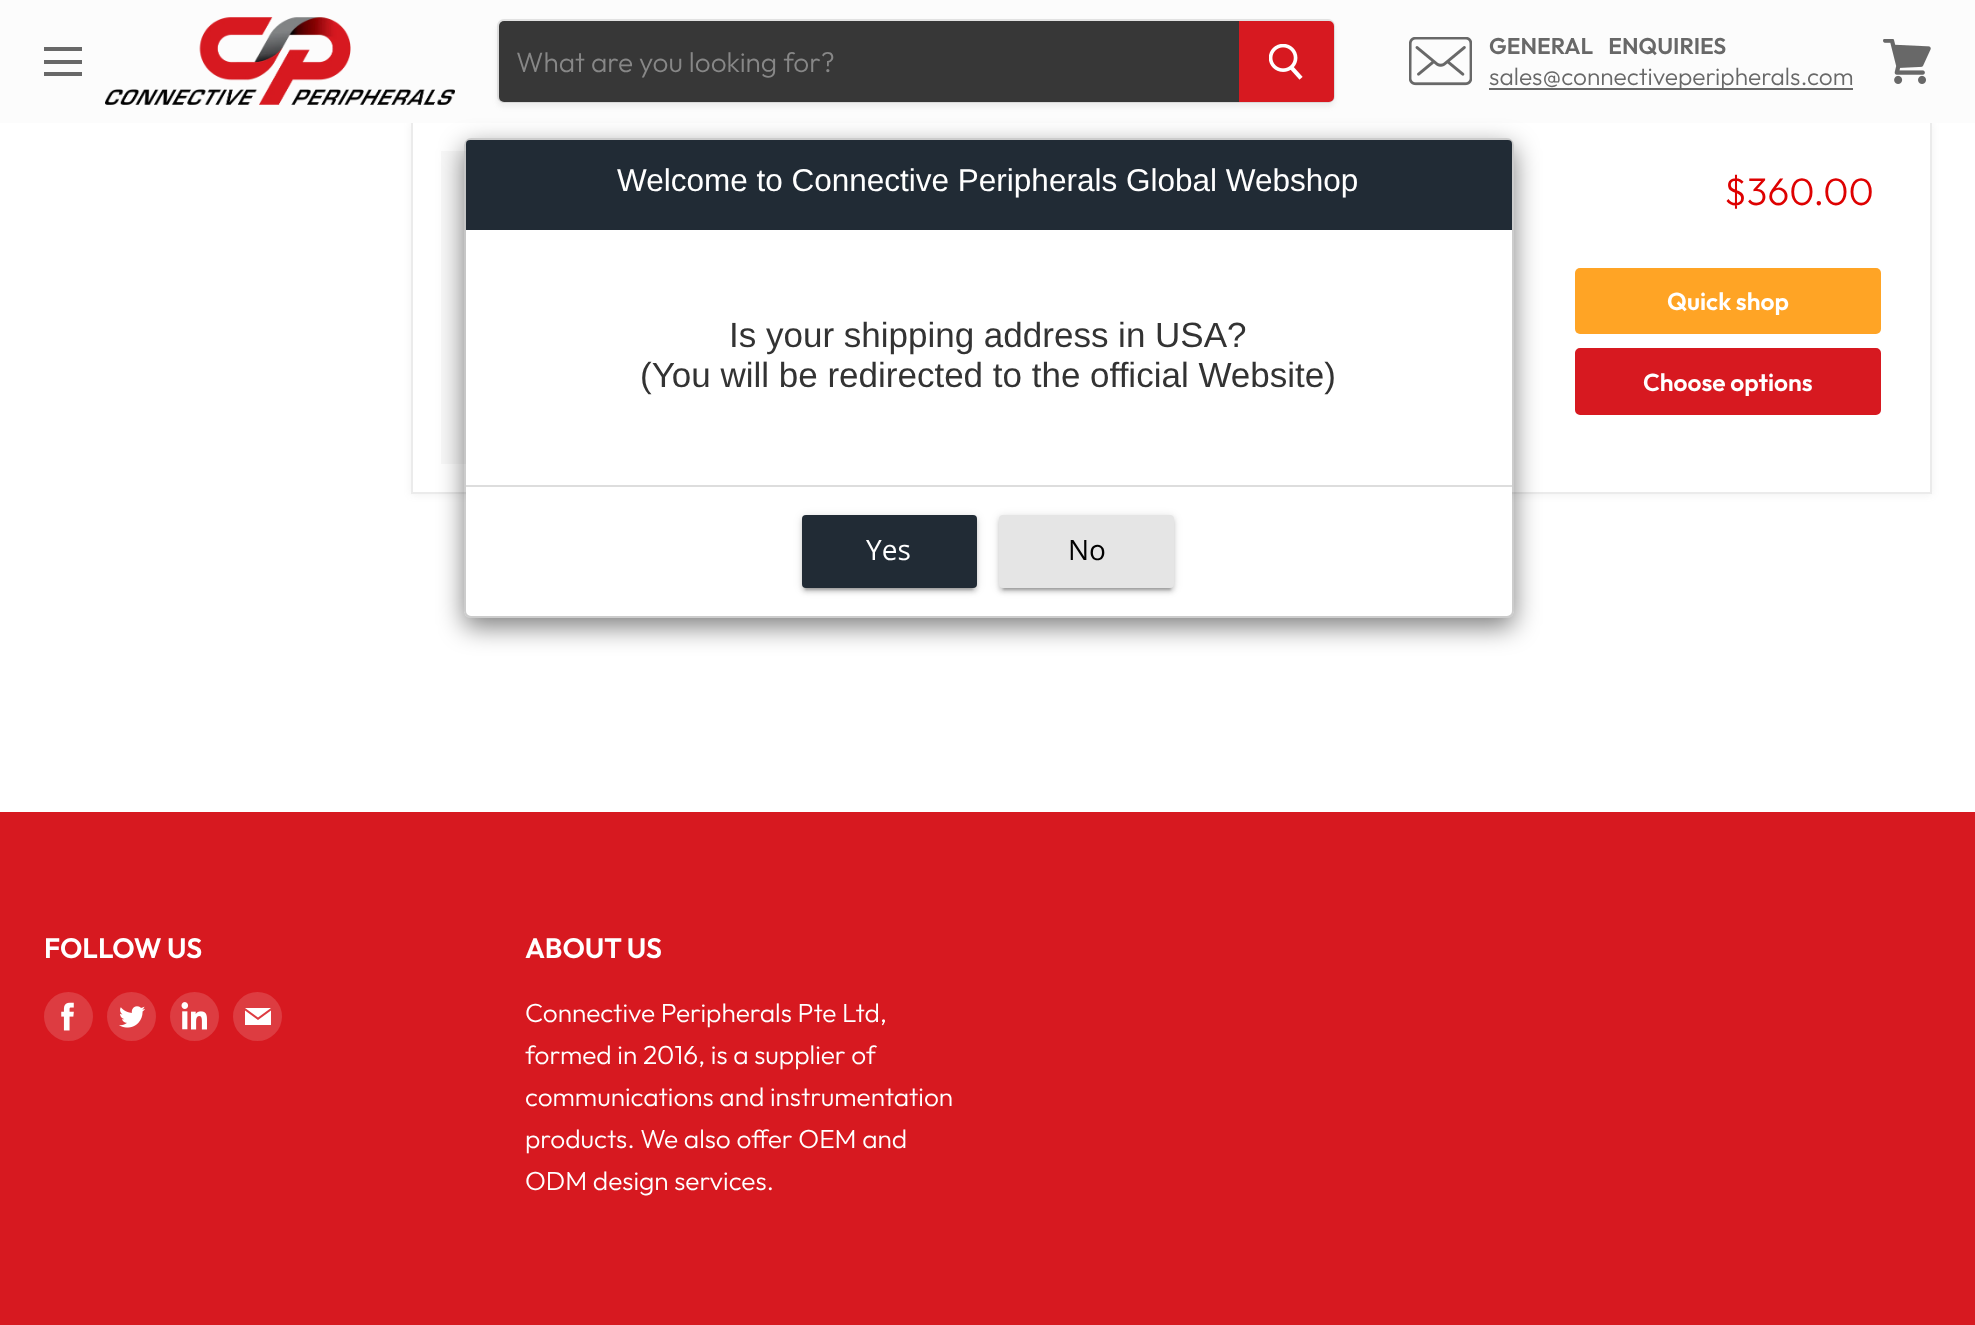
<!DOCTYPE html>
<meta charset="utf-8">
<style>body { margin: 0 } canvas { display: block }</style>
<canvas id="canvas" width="1975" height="1325"></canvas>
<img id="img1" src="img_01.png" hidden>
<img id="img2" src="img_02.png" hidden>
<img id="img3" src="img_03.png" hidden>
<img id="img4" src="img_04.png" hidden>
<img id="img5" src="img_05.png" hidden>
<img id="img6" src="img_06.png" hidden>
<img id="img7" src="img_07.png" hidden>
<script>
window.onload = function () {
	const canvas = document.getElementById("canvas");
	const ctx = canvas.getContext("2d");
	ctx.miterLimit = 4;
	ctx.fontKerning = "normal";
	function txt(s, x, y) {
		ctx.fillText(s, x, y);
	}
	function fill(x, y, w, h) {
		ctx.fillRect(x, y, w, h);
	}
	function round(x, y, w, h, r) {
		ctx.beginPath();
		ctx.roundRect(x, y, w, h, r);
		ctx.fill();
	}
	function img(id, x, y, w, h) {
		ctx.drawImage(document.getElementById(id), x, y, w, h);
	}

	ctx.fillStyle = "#FFFFFF";
	fill(0, 0, 1975, 1325);
	ctx.fillStyle = "rgba(128, 128, 128, 0.11)";
	ctx.filter = "blur(3.5px)";
	ctx.beginPath();
	ctx.rect(411, 123, 1521, 372);
	ctx.fill();
	ctx.filter = "none";
	ctx.fillStyle = "#FFFFFF";
	ctx.beginPath();
	ctx.rect(412, 122, 1519, 371);
	ctx.fill();
	ctx.strokeStyle = "#EBEBEB";
	ctx.lineWidth = 2;
	ctx.stroke();
	ctx.fillStyle = "#FCFCFC";
	fill(0, 0, 1975, 123);
	ctx.fillStyle = "#686868";
	fill(44, 47, 38, 4);
	fill(44, 60, 38, 4);
	fill(44, 72, 38, 4);
	img("img1", 105, 17, 350, 88);
	ctx.fillStyle = "rgba(128, 128, 128, 0.11)";
	ctx.filter = "blur(2.5px)";
	ctx.beginPath();
	ctx.roundRect(497, 23, 838, 84, 7);
	ctx.fill();
	ctx.filter = "none";
	ctx.beginPath();
	ctx.roundRect(498, 20, 836, 82, 6);
	ctx.strokeStyle = "rgba(128, 128, 128, 0.2)";
	ctx.stroke();
	ctx.fillStyle = "#373737";
	ctx.beginPath();
	ctx.roundRect(499, 21, 740, 81, [5, 0, 0, 5]);
	ctx.fill();
	ctx.fillStyle = "#D71920";
	ctx.beginPath();
	ctx.roundRect(1240, 22, 93, 79, [0, 4, 4, 0]);
	ctx.fill();
	ctx.strokeStyle = "#D71920";
	ctx.stroke();
	img("img2", 1269, 44, 34, 36);
	img("img3", 1409, 37, 63, 49);
	ctx.fillStyle = "#686868";
	fill(1489, 88, 364, 2);
	img("img4", 1883, 39, 48, 45);
	ctx.fillStyle = "#F8F8F8";
	fill(441, 151, 25, 313);
	ctx.save();
	ctx.beginPath();
	ctx.moveTo(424, 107);
	ctx.lineTo(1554, 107);
	ctx.lineTo(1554, 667);
	ctx.lineTo(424, 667);
	ctx.closePath();
	ctx.moveTo(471, 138);
	ctx.lineTo(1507, 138);
	ctx.bezierCurveTo(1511, 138, 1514, 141, 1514, 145);
	ctx.lineTo(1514, 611);
	ctx.bezierCurveTo(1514, 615, 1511, 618, 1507, 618);
	ctx.lineTo(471, 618);
	ctx.bezierCurveTo(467, 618, 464, 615, 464, 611);
	ctx.lineTo(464, 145);
	ctx.bezierCurveTo(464, 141, 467, 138, 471, 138);
	ctx.closePath();
	ctx.clip("evenodd");
	ctx.fillStyle = "rgba(0, 0, 0, 0.5)";
	ctx.filter = "blur(13px)";
	ctx.beginPath();
	ctx.roundRect(464, 147, 1050, 480, 7);
	ctx.fill();
	ctx.filter = "none";
	ctx.restore();
	ctx.fillStyle = "#FFFFFF";
	round(466, 140, 1046, 476, 5);
	ctx.beginPath();
	ctx.roundRect(465, 139, 1048, 478, 6);
	ctx.strokeStyle = "rgba(0, 0, 0, 0.2)";
	ctx.stroke();
	ctx.fillStyle = "#212B35";
	ctx.beginPath();
	ctx.roundRect(466, 140, 1046, 89, [4, 4, 0, 0]);
	ctx.fill();
	fill(466, 229, 1046, 1);
	ctx.fillStyle = "#DDDDDD";
	fill(466, 485, 1046, 2);
	ctx.fillStyle = "rgba(0, 0, 0, 0.12)";
	ctx.filter = "blur(4.5px)";
	ctx.beginPath();
	ctx.roundRect(802, 516, 175, 74, 4);
	ctx.fill();
	ctx.filter = "none";
	ctx.fillStyle = "rgba(0, 0, 0, 0.2)";
	ctx.filter = "blur(1px)";
	ctx.beginPath();
	ctx.rect(805, 523, 168, 67);
	ctx.fill();
	ctx.filter = "none";
	ctx.fillStyle = "rgba(0, 0, 0, 0.14)";
	ctx.filter = "blur(2px)";
	ctx.beginPath();
	ctx.roundRect(802, 518, 175, 74, 4);
	ctx.fill();
	ctx.filter = "none";
	ctx.fillStyle = "#212B35";
	round(802, 515, 175, 73, 4);
	ctx.fillStyle = "rgba(0, 0, 0, 0.12)";
	ctx.filter = "blur(4.5px)";
	ctx.beginPath();
	ctx.roundRect(999, 516, 175, 74, 4);
	ctx.fill();
	ctx.filter = "none";
	ctx.fillStyle = "rgba(0, 0, 0, 0.2)";
	ctx.filter = "blur(1px)";
	ctx.beginPath();
	ctx.rect(1003, 523, 168, 67);
	ctx.fill();
	ctx.filter = "none";
	ctx.fillStyle = "rgba(0, 0, 0, 0.14)";
	ctx.filter = "blur(2px)";
	ctx.beginPath();
	ctx.roundRect(999, 518, 175, 74, 4);
	ctx.fill();
	ctx.filter = "none";
	ctx.fillStyle = "#E5E5E5";
	round(999, 515, 175, 73, 4);
	ctx.fillStyle = "#FFA425";
	round(1575, 268, 306, 66, 5);
	ctx.fillStyle = "#D71920";
	ctx.beginPath();
	ctx.roundRect(1576, 349, 304, 65, 4);
	ctx.fill();
	ctx.strokeStyle = "#D71920";
	ctx.stroke();
	fill(0, 812, 1975, 513);
	ctx.fillStyle = "#DD3C41";
	ctx.beginPath();
	ctx.arc(68.5, 1016.5, 24.5, 0, Math.PI * 2);
	ctx.fill();
	img("img5", 61, 1002, 13, 29);
	ctx.beginPath();
	ctx.arc(131.5, 1016.5, 24.5, 0, Math.PI * 2);
	ctx.fill();
	img("img6", 119, 1006, 26, 22);
	ctx.beginPath();
	ctx.arc(194.5, 1016.5, 24.5, 0, Math.PI * 2);
	ctx.fill();
	img("img7", 181, 1002, 26, 28);
	ctx.beginPath();
	ctx.arc(257.5, 1016.5, 24.5, 0, Math.PI * 2);
	ctx.fill();
	ctx.fillStyle = "#FFFFFF";
	ctx.beginPath();
	ctx.moveTo(271, 1008);
	ctx.lineTo(245, 1008);
	ctx.lineTo(258, 1017.5);
	ctx.closePath();
	ctx.moveTo(258, 1020);
	ctx.lineTo(245, 1010.5);
	ctx.lineTo(245, 1025);
	ctx.lineTo(271, 1025);
	ctx.lineTo(271, 1010.5);
	ctx.closePath();
	ctx.fill("evenodd");
	ctx.font = "300 28px Outfit";
	ctx.fillStyle = "#878787";
	txt("What are you looking for?", 516, 72);
	ctx.wordSpacing = "11px";
	ctx.font = "600 22.75px Outfit";
	ctx.fillStyle = "#686868";
	txt("GENERAL ENQUIRIES", 1489, 54);
	ctx.wordSpacing = "0px";
	ctx.font = "300 24.5px Outfit";
	txt("sales@connectiveperipherals.com", 1489, 85);
	ctx.font = "31.5px Liberation Sans";
	ctx.fillStyle = "#FFFFFF";
	txt("Welcome to Connective Peripherals Global Webshop", 617, 191);
	ctx.font = "35px Liberation Sans";
	ctx.fillStyle = "#333333";
	txt("Is your shipping address in USA?", 729, 347);
	txt("(You will be redirected to the official Website)", 640, 387);
	ctx.font = "28px Open Sans";
	ctx.fillStyle = "#FFFFFF";
	txt("Yes", 866, 560);
	ctx.fillStyle = "#000000";
	txt("No", 1068, 560);
	ctx.font = "300 38.5px Outfit";
	ctx.fillStyle = "#DE0101";
	txt("$360.00", 1724, 205);
	ctx.font = "600 24.5px Outfit";
	ctx.fillStyle = "#FFFFFF";
	txt("Quick shop", 1667, 310);
	txt("Choose options", 1643, 391);
	ctx.font = "600 28px Outfit";
	txt("FOLLOW US", 44, 958);
	txt("ABOUT US", 525, 958);
	ctx.font = "300 26.25px Outfit";
	txt("Connective Peripherals Pte Ltd,", 525, 1022);
	txt("formed in 2016, is a supplier of", 525, 1064);
	txt("communications and instrumentation", 525, 1106);
	txt("products. We also offer OEM and", 525, 1148);
	txt("ODM design services.", 525, 1190);
};
</script>
